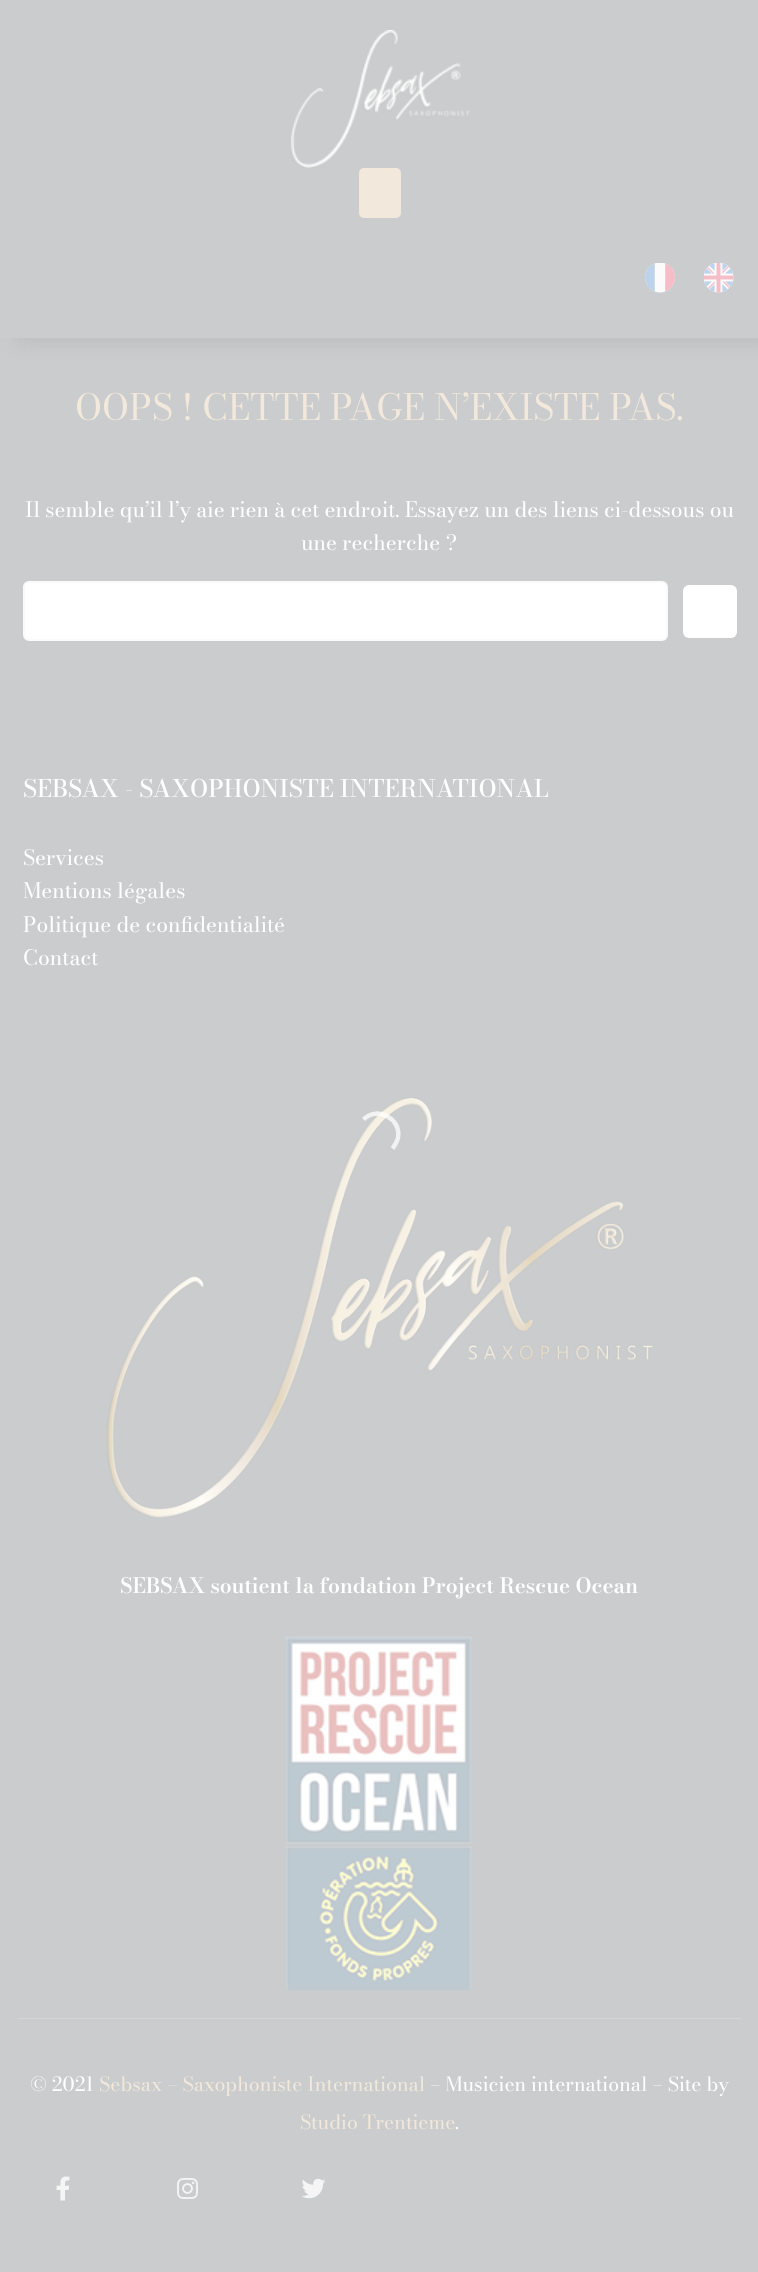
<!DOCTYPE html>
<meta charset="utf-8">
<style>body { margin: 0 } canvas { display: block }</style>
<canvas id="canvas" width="758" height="2272"></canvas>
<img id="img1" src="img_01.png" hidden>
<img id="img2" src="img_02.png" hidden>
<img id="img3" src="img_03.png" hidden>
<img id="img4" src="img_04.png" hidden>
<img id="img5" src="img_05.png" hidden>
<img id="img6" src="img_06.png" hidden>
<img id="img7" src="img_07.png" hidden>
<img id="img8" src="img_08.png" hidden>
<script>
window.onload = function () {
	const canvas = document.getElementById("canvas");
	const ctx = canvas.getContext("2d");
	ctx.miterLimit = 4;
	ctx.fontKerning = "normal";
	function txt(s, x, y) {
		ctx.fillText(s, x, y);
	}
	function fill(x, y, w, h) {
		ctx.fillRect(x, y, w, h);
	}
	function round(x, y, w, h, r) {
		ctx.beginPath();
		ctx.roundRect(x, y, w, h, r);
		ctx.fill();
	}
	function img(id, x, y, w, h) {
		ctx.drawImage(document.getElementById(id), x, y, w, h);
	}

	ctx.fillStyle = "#CACCCD";
	fill(0, 0, 758, 2272);
	ctx.save();
	ctx.beginPath();
	ctx.moveTo(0, 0);
	ctx.lineTo(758, 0);
	ctx.lineTo(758, 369);
	ctx.lineTo(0, 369);
	ctx.closePath();
	ctx.moveTo(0, 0);
	ctx.lineTo(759, 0);
	ctx.lineTo(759, 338);
	ctx.lineTo(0, 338);
	ctx.closePath();
	ctx.clip("evenodd");
	ctx.fillStyle = "rgba(189, 189, 189, 0.82)";
	ctx.filter = "blur(7.5px)";
	ctx.beginPath();
	ctx.rect(15, 8, 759, 337);
	ctx.fill();
	ctx.filter = "none";
	ctx.restore();
	img("img1", 289, 30, 181, 138);
	ctx.fillStyle = "#F2E8DB";
	round(359, 168, 42, 50, 5);
	img("img2", 645, 263, 30, 30);
	img("img3", 704, 263, 30, 30);
	ctx.fillStyle = "#FFFFFF";
	ctx.beginPath();
	ctx.roundRect(24, 582, 643, 58, 5);
	ctx.fill();
	ctx.strokeStyle = "#FAFAFA";
	ctx.lineWidth = 2;
	ctx.stroke();
	round(683, 585, 54, 53, 6);
	img("img4", 106, 1097, 547, 421);
	img("img5", 284, 1636, 189, 355);
	ctx.fillStyle = "#D4D5D7";
	fill(18, 2018, 723, 1);
	img("img6", 56, 2176, 14, 25);
	img("img7", 177, 2177, 22, 22);
	img("img8", 301, 2178, 25, 21);
	ctx.beginPath();
	ctx.moveTo(363.5, 1119.5);
	ctx.bezierCurveTo(377.5, 1105.5, 401.5, 1118.5, 398, 1138);
	ctx.bezierCurveTo(397, 1142, 395, 1145.5, 392.5, 1148.5);
	ctx.strokeStyle = "rgba(255, 255, 255, 0.74)";
	ctx.lineWidth = 4.5;
	ctx.stroke();
	ctx.font = "36px Bodoni Moda";
	ctx.fillStyle = "#F2E8DB";
	txt("OOPS ! CETTE PAGE N’EXISTE PAS.", 75, 420);
	ctx.font = "21px Bodoni Moda";
	ctx.fillStyle = "#FFFFFF";
	txt("Il semble qu’il l’y aie rien à cet endroit. Essayez un des liens ci-dessous ou", 25, 517);
	txt("une recherche ?", 301, 550);
	ctx.font = "500 24px Bodoni Moda";
	txt("SEBSAX - SAXOPHONISTE INTERNATIONAL", 23, 797);
	ctx.font = "21px Bodoni Moda";
	txt("Services", 23, 865);
	txt("Mentions légales", 23, 898);
	txt("Politique de confidentialité", 23, 932);
	txt("Contact", 23, 965);
	ctx.font = "600 21px Bodoni Moda";
	txt("SEBSAX soutient la fondation Project Rescue Ocean", 120, 1593);
	ctx.font = "19.5px Bodoni Moda";
	txt("© 2021", 30, 2091);
	ctx.fillStyle = "#F2E8DB";
	txt("Sebsax – Saxophoniste International", 99, 2091);
	ctx.fillStyle = "#FFFFFF";
	txt("– Musicien international – Site by", 430, 2091);
	ctx.fillStyle = "#F2E8DB";
	txt("Studio Trentieme", 300, 2129);
	ctx.fillStyle = "#FFFFFF";
	txt(".", 455, 2129);
};
</script>
